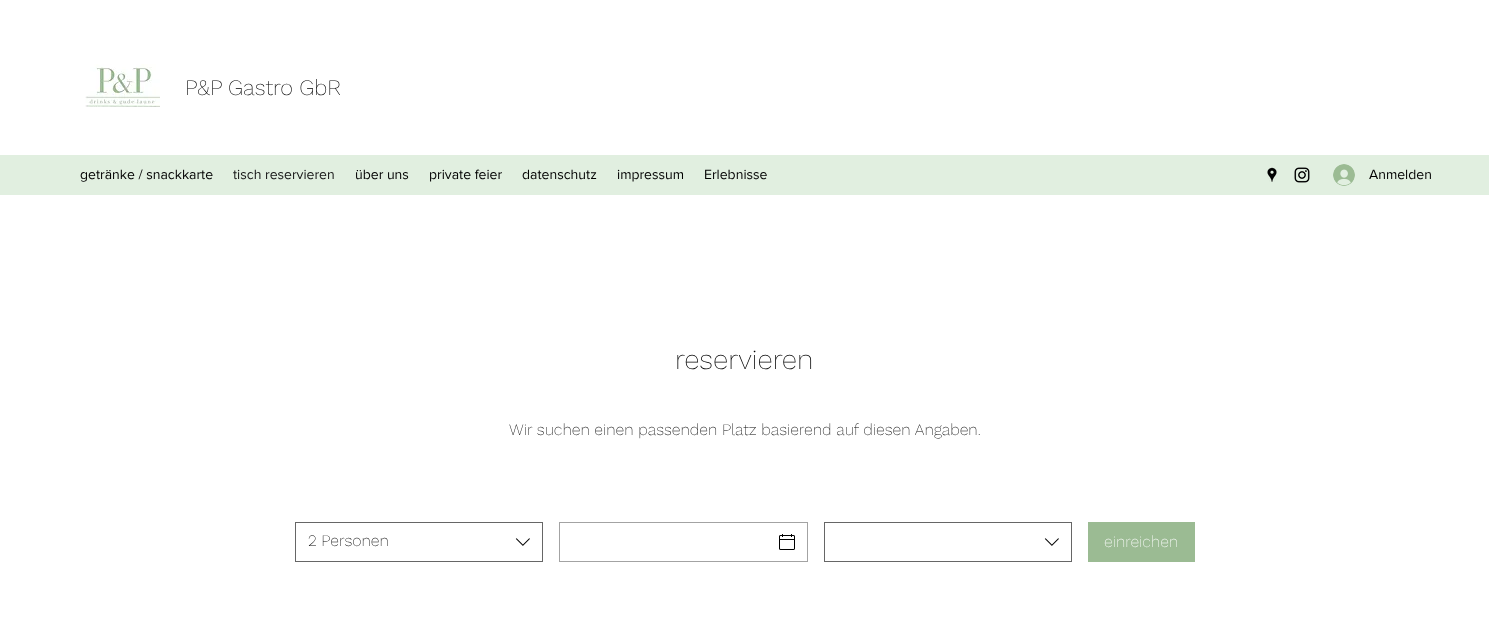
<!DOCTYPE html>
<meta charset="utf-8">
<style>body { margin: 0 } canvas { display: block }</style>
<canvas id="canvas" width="1489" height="643"></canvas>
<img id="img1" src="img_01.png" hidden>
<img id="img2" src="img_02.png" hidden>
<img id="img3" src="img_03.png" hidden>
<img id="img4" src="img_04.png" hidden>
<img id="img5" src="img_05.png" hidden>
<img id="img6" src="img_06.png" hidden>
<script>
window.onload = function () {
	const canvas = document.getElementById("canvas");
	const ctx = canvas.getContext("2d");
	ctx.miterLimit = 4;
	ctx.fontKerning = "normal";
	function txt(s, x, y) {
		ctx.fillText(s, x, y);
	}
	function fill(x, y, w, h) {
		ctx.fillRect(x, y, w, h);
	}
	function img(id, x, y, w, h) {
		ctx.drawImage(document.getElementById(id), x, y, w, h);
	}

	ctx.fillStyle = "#FFFFFF";
	fill(0, 0, 1489, 643);
	img("img1", 85, 64, 75, 43);
	ctx.fillStyle = "#E1EFE0";
	fill(0, 155, 1489, 40);
	img("img2", 1267, 167, 10, 15);
	img("img3", 1294, 167, 16, 16);
	img("img4", 1333, 164, 22, 22);
	ctx.strokeStyle = "#666666";
	ctx.strokeRect(295.5, 522.5, 247, 39);
	img("img5", 515, 538, 15, 8);
	ctx.strokeStyle = "#A3A3A3";
	ctx.strokeRect(559.5, 522.5, 248, 39);
	img("img6", 779, 534, 16, 16);
	ctx.strokeStyle = "#666666";
	ctx.strokeRect(824.5, 522.5, 247, 39);
	img("img5", 1044, 538, 15, 8);
	ctx.fillStyle = "#9BBB93";
	fill(1088, 522, 107, 40);
	ctx.font = "200 22px Work Sans";
	ctx.fillStyle = "#000000";
	txt("P&P", 185, 95);
	txt("Gastro GbR", 228, 95);
	ctx.font = "14px 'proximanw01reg'";
	txt("getränke / snackkarte", 80, 179);
	ctx.fillStyle = "#161616";
	txt("tisch reservieren", 233, 179);
	ctx.fillStyle = "#000000";
	txt("über uns", 355, 179);
	txt("private feier", 429, 179);
	txt("datenschutz", 522, 179);
	txt("impressum", 617, 179);
	txt("Erlebnisse", 704, 179);
	txt("Anmelden", 1369, 179);
	ctx.font = "200 28px Work Sans";
	txt("reservieren", 675, 369);
	ctx.font = "200 16px Work Sans";
	txt("Wir suchen einen passenden Platz basierend auf diesen Angaben.", 509, 435);
	txt("2 Personen", 308, 546);
	ctx.fillStyle = "#FFFFFF";
	txt("einreichen", 1104, 547);
};
</script>
